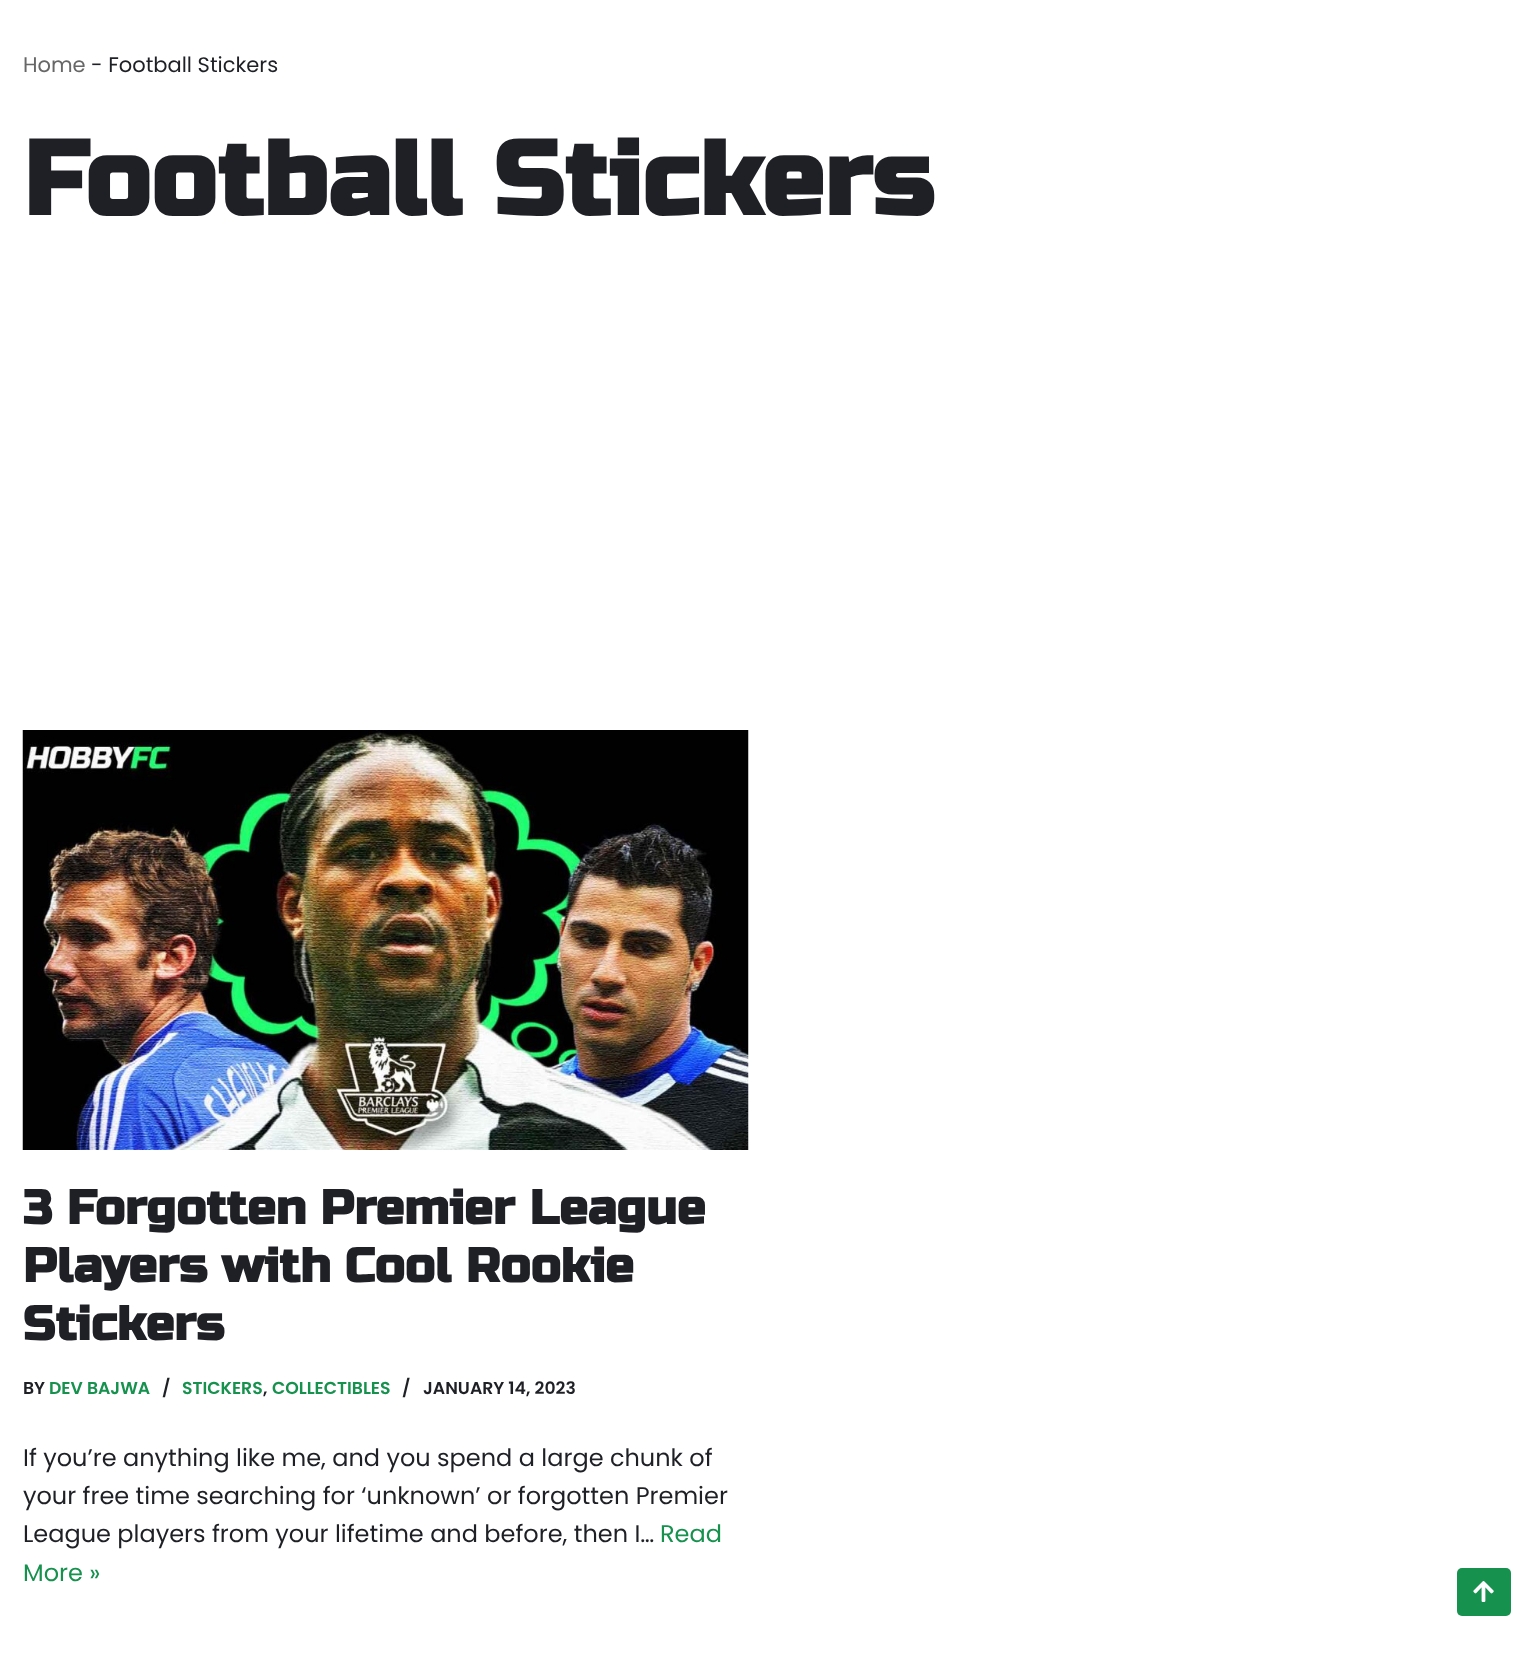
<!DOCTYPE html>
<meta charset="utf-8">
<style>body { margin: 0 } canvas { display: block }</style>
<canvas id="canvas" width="1540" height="1660"></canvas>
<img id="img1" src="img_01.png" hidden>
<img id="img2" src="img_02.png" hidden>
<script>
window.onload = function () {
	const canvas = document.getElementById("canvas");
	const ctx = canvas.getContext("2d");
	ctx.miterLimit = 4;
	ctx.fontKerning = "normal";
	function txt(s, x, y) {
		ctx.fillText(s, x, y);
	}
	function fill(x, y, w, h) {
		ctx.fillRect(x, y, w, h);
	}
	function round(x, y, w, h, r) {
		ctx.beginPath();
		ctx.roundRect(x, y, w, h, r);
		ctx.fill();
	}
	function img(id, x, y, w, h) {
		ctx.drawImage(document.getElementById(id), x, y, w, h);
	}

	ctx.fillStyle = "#FFFFFF";
	fill(0, 0, 1540, 1660);
	img("img1", 22, 730, 727, 420);
	ctx.fillStyle = "#16914E";
	round(1457, 1568, 54, 48, 5);
	img("img2", 1473, 1581, 21, 21);
	ctx.font = "21px Poppins";
	ctx.fillStyle = "#676767";
	txt("Home", 23, 72);
	ctx.fillStyle = "#1F2025";
	txt("- Football Stickers", 91, 72);
	ctx.font = "bold 105px Russo One";
	txt("Football Stickers", 23, 215);
	ctx.font = "bold 48px Russo One";
	txt("3 Forgotten Premier League", 23, 1224);
	txt("Players with Cool Rookie", 23, 1282);
	txt("Stickers", 23, 1340);
	ctx.font = "600 17.25px Poppins";
	txt("BY", 23, 1394);
	ctx.fillStyle = "#16914E";
	txt("DEV BAJWA", 49, 1394);
	ctx.fillStyle = "#1F2025";
	txt("/", 162, 1394);
	ctx.fillStyle = "#16914E";
	txt("STICKERS", 182, 1394);
	ctx.fillStyle = "#1F2025";
	txt(",", 263, 1394);
	ctx.fillStyle = "#16914E";
	txt("COLLECTIBLES", 272, 1394);
	ctx.fillStyle = "#1F2025";
	txt("/", 402, 1394);
	txt("JANUARY 14, 2023", 423, 1394);
	ctx.font = "24px Poppins";
	txt("If you’re anything like me, and you spend a large chunk of", 23, 1466);
	txt("your free time searching for ‘unknown’ or forgotten Premier", 23, 1504);
	txt("League players from your lifetime and before, then I…", 23, 1542);
	ctx.fillStyle = "#16914E";
	txt("Read", 660, 1542);
	txt("More »", 23, 1581);
};
</script>
